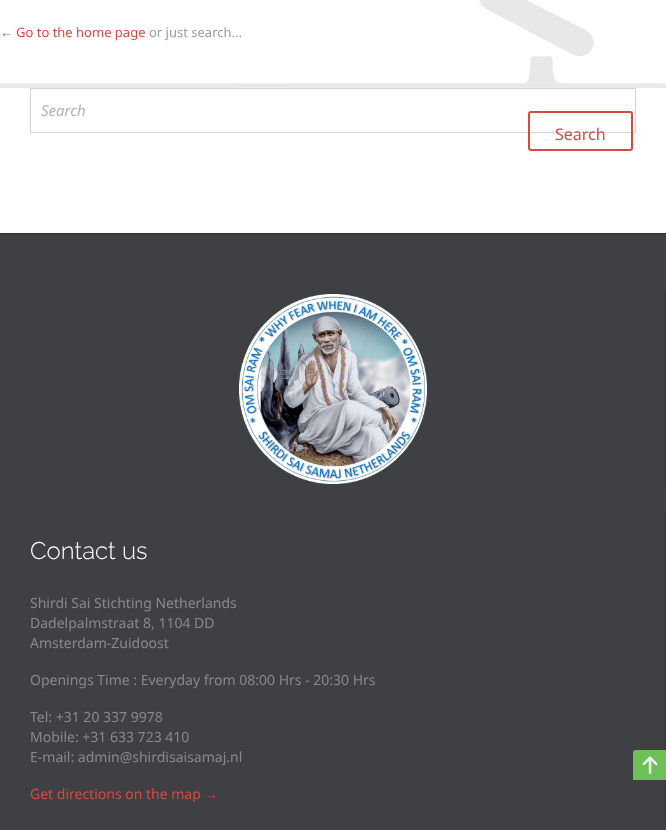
<!DOCTYPE html>
<meta charset="utf-8">
<style>body { margin: 0 } canvas { display: block }</style>
<canvas id="canvas" width="666" height="830"></canvas>
<img id="img1" src="img_01.png" hidden>
<img id="img2" src="img_02.png" hidden>
<img id="img3" src="img_03.png" hidden>
<script>
window.onload = function () {
	const canvas = document.getElementById("canvas");
	const ctx = canvas.getContext("2d");
	ctx.miterLimit = 4;
	ctx.fontKerning = "normal";
	function txt(s, x, y) {
		ctx.fillText(s, x, y);
	}
	function fill(x, y, w, h) {
		ctx.fillRect(x, y, w, h);
	}
	function img(id, x, y, w, h) {
		ctx.drawImage(document.getElementById(id), x, y, w, h);
	}

	ctx.fillStyle = "#FFFFFF";
	fill(0, 0, 666, 830);
	img("img1", 0, 0, 666, 88);
	ctx.strokeStyle = "#D4D4D4";
	ctx.strokeRect(30.5, 88.5, 605, 44);
	ctx.beginPath();
	ctx.roundRect(529, 112, 103, 38, 2);
	ctx.strokeStyle = "#D14D42";
	ctx.lineWidth = 2;
	ctx.stroke();
	ctx.fillStyle = "#3E4043";
	fill(0, 234, 666, 596);
	ctx.fillStyle = "#323336";
	fill(0, 233, 666, 1);
	fill(665, 294, 1, 190);
	img("img2", 239, 294, 188, 190);
	fill(665, 514, 1, 306);
	ctx.fillStyle = "#6CC056";
	ctx.beginPath();
	ctx.roundRect(633, 750, 33, 30, [3, 0, 0, 0]);
	ctx.fill();
	img("img3", 642, 756, 16, 18);
	ctx.font = "13px Liberation Serif";
	ctx.fillStyle = "#D14D42";
	txt("←", 0, 37);
	ctx.font = "13px Noto Sans";
	txt("Go to the home page", 16, 37);
	ctx.fillStyle = "#9B9B9B";
	txt("or just search...", 149, 37);
	ctx.font = "italic 15px Noto Sans";
	ctx.fillStyle = "#B3B3B3";
	txt("Search", 41, 116);
	ctx.font = "16px Noto Sans";
	ctx.fillStyle = "#D14D42";
	txt("Search", 555, 140);
	ctx.font = "300 24px Raleway";
	ctx.fillStyle = "#FFFFFF";
	txt("Contact us", 30, 559);
	ctx.font = "14px Noto Sans";
	ctx.fillStyle = "#898989";
	txt("Shirdi Sai Stichting Netherlands", 30, 608);
	txt("Dadelpalmstraat 8, 1104 DD", 30, 628);
	txt("Amsterdam-Zuidoost", 30, 648);
	txt("Openings Time : Everyday from 08:00 Hrs - 20:30 Hrs", 30, 685);
	txt("Tel: +31 20 337 9978", 30, 722);
	txt("Mobile: +31 633 723 410", 30, 742);
	txt("E-mail: admin@shirdisaisamaj.nl", 30, 762);
	ctx.fillStyle = "#D14D42";
	txt("Get directions on the map", 30, 799);
	ctx.font = "14px Liberation Serif";
	txt("→", 204, 799);
};
</script>
